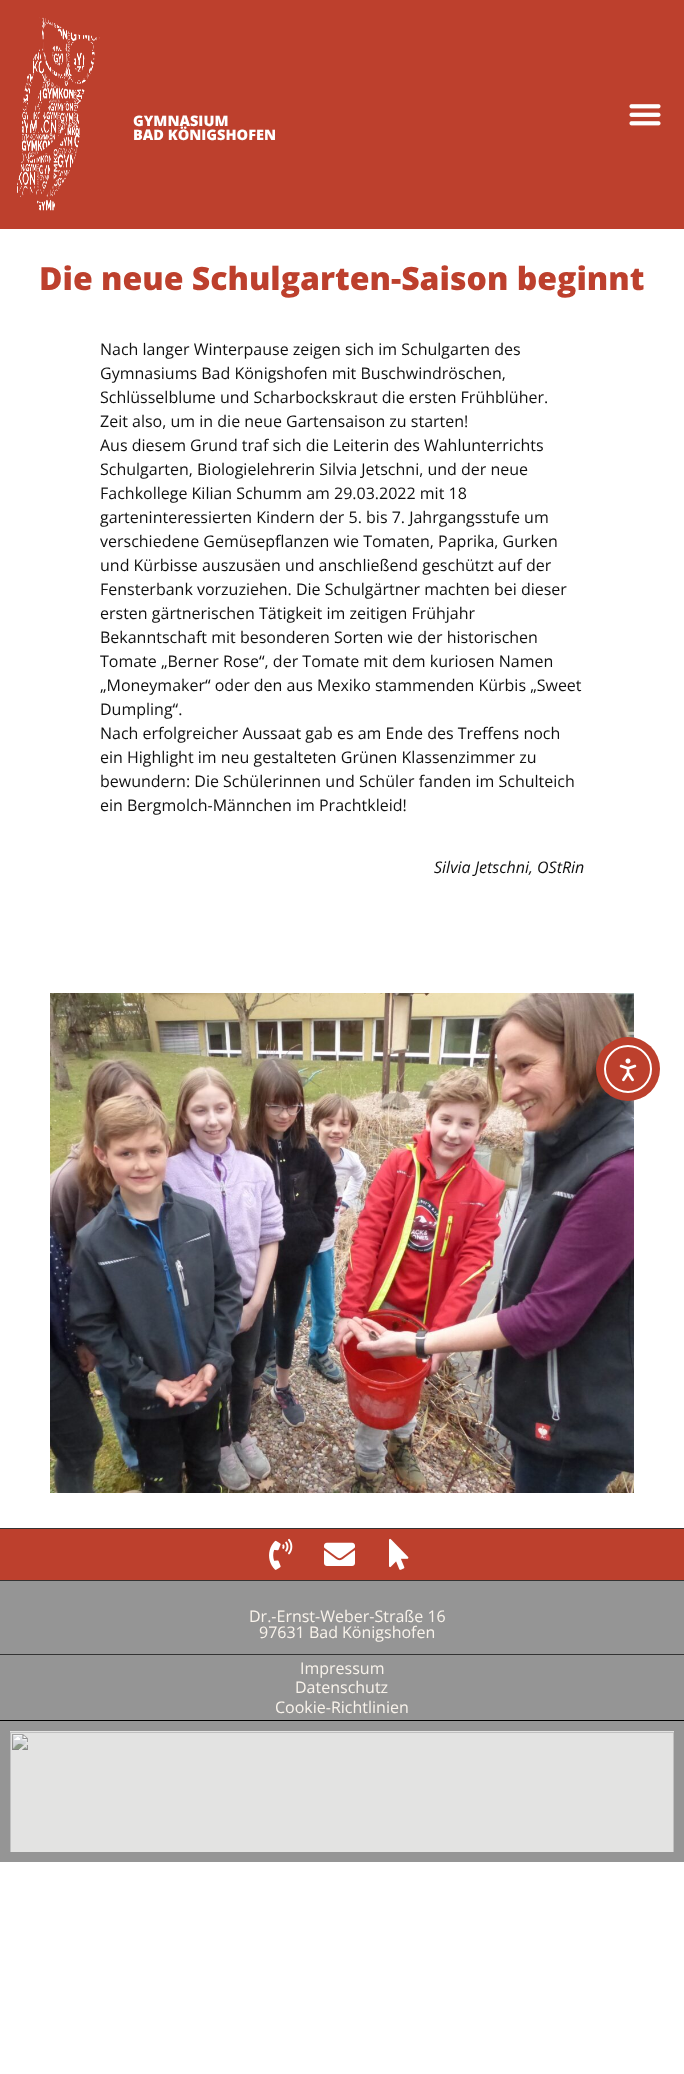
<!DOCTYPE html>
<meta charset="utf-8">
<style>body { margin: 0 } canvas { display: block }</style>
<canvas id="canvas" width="684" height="2074"></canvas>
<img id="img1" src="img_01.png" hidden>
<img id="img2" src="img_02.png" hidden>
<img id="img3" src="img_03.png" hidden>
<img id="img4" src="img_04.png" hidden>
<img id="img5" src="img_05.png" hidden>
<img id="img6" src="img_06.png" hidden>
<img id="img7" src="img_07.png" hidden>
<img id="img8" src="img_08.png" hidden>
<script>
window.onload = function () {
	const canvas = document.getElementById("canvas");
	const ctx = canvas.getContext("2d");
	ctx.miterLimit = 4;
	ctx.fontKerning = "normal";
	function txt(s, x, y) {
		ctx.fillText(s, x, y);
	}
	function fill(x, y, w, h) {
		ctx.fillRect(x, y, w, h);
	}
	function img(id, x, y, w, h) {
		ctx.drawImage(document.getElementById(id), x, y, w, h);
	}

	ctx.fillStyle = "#FFFFFF";
	fill(0, 0, 684, 2074);
	ctx.fillStyle = "#BD402D";
	fill(0, 0, 684, 229);
	img("img1", 17, 17, 83, 194);
	img("img2", 629, 104, 32, 22);
	img("img3", 50, 993, 584, 500);
	ctx.fillStyle = "#959595";
	fill(0, 1581, 684, 281);
	ctx.fillStyle = "#BD402D";
	fill(0, 1529, 684, 51);
	ctx.fillStyle = "#333333";
	fill(0, 1528, 684, 1);
	img("img4", 269, 1538, 24, 32);
	img("img5", 324, 1542, 31, 24);
	img("img6", 389, 1538, 20, 32);
	fill(0, 1580, 684, 1);
	fill(0, 1654, 684, 1);
	ctx.fillStyle = "#000000";
	fill(0, 1720, 684, 1);
	img("img7", 10, 1731, 664, 121);
	ctx.fillStyle = "#BD402D";
	ctx.beginPath();
	ctx.arc(628, 1069, 32, 0, Math.PI * 2);
	ctx.fill();
	ctx.beginPath();
	ctx.arc(628, 1069, 23, 0, Math.PI * 2);
	ctx.strokeStyle = "#FFFFFF";
	ctx.lineWidth = 2;
	ctx.stroke();
	img("img8", 619, 1058, 18, 24);
	ctx.font = "800 14.5px Open Sans";
	ctx.fillStyle = "#FFFFFF";
	txt("GYMNASIUM", 133, 126);
	txt("BAD KÖNIGSHOFEN", 133, 140);
	ctx.font = "800 32px Open Sans";
	ctx.fillStyle = "#BD402D";
	txt("Die neue Schulgarten-Saison beginnt", 39, 290);
	ctx.font = "16px Open Sans";
	ctx.fillStyle = "#101010";
	txt("Nach langer Winterpause zeigen sich im Schulgarten des", 100, 355);
	txt("Gymnasiums Bad Königshofen mit Buschwindröschen,", 100, 379);
	txt("Schlüsselblume und Scharbockskraut die ersten Frühblüher.", 100, 403);
	txt("Zeit also, um in die neue Gartensaison zu starten!", 100, 427);
	txt("Aus diesem Grund traf sich die Leiterin des Wahlunterrichts", 100, 451);
	txt("Schulgarten, Biologielehrerin Silvia Jetschni, und der neue", 100, 475);
	txt("Fachkollege Kilian Schumm am 29.03.2022 mit 18", 100, 499);
	txt("garteninteressierten Kindern der 5. bis 7. Jahrgangsstufe um", 100, 523);
	txt("verschiedene Gemüsepflanzen wie Tomaten, Paprika, Gurken", 100, 547);
	txt("und Kürbisse auszusäen und anschließend geschützt auf der", 100, 571);
	txt("Fensterbank vorzuziehen. Die Schulgärtner machten bei dieser", 100, 595);
	txt("ersten gärtnerischen Tätigkeit im zeitigen Frühjahr", 100, 619);
	txt("Bekanntschaft mit besonderen Sorten wie der historischen", 100, 643);
	txt("Tomate „Berner Rose“, der Tomate mit dem kuriosen Namen", 100, 667);
	txt("„Moneymaker“ oder den aus Mexiko stammenden Kürbis „Sweet", 100, 691);
	txt("Dumpling“.", 100, 715);
	txt("Nach erfolgreicher Aussaat gab es am Ende des Treffens noch", 100, 739);
	txt("ein Highlight im neu gestalteten Grünen Klassenzimmer zu", 100, 763);
	txt("bewundern: Die Schülerinnen und Schüler fanden im Schulteich", 100, 787);
	txt("ein Bergmolch-Männchen im Prachtkleid!", 100, 811);
	ctx.font = "italic 16px Open Sans";
	txt("Silvia Jetschni, OStRin", 434, 873);
	ctx.font = "16px Open Sans";
	ctx.fillStyle = "#F9F3EB";
	txt("Dr.-Ernst-Weber-Straße 16", 249, 1622);
	txt("97631 Bad Königshofen", 259, 1638);
	txt("Impressum", 300, 1674);
	txt("Datenschutz", 295, 1693);
	txt("Cookie-Richtlinien", 275, 1713);
};
</script>
